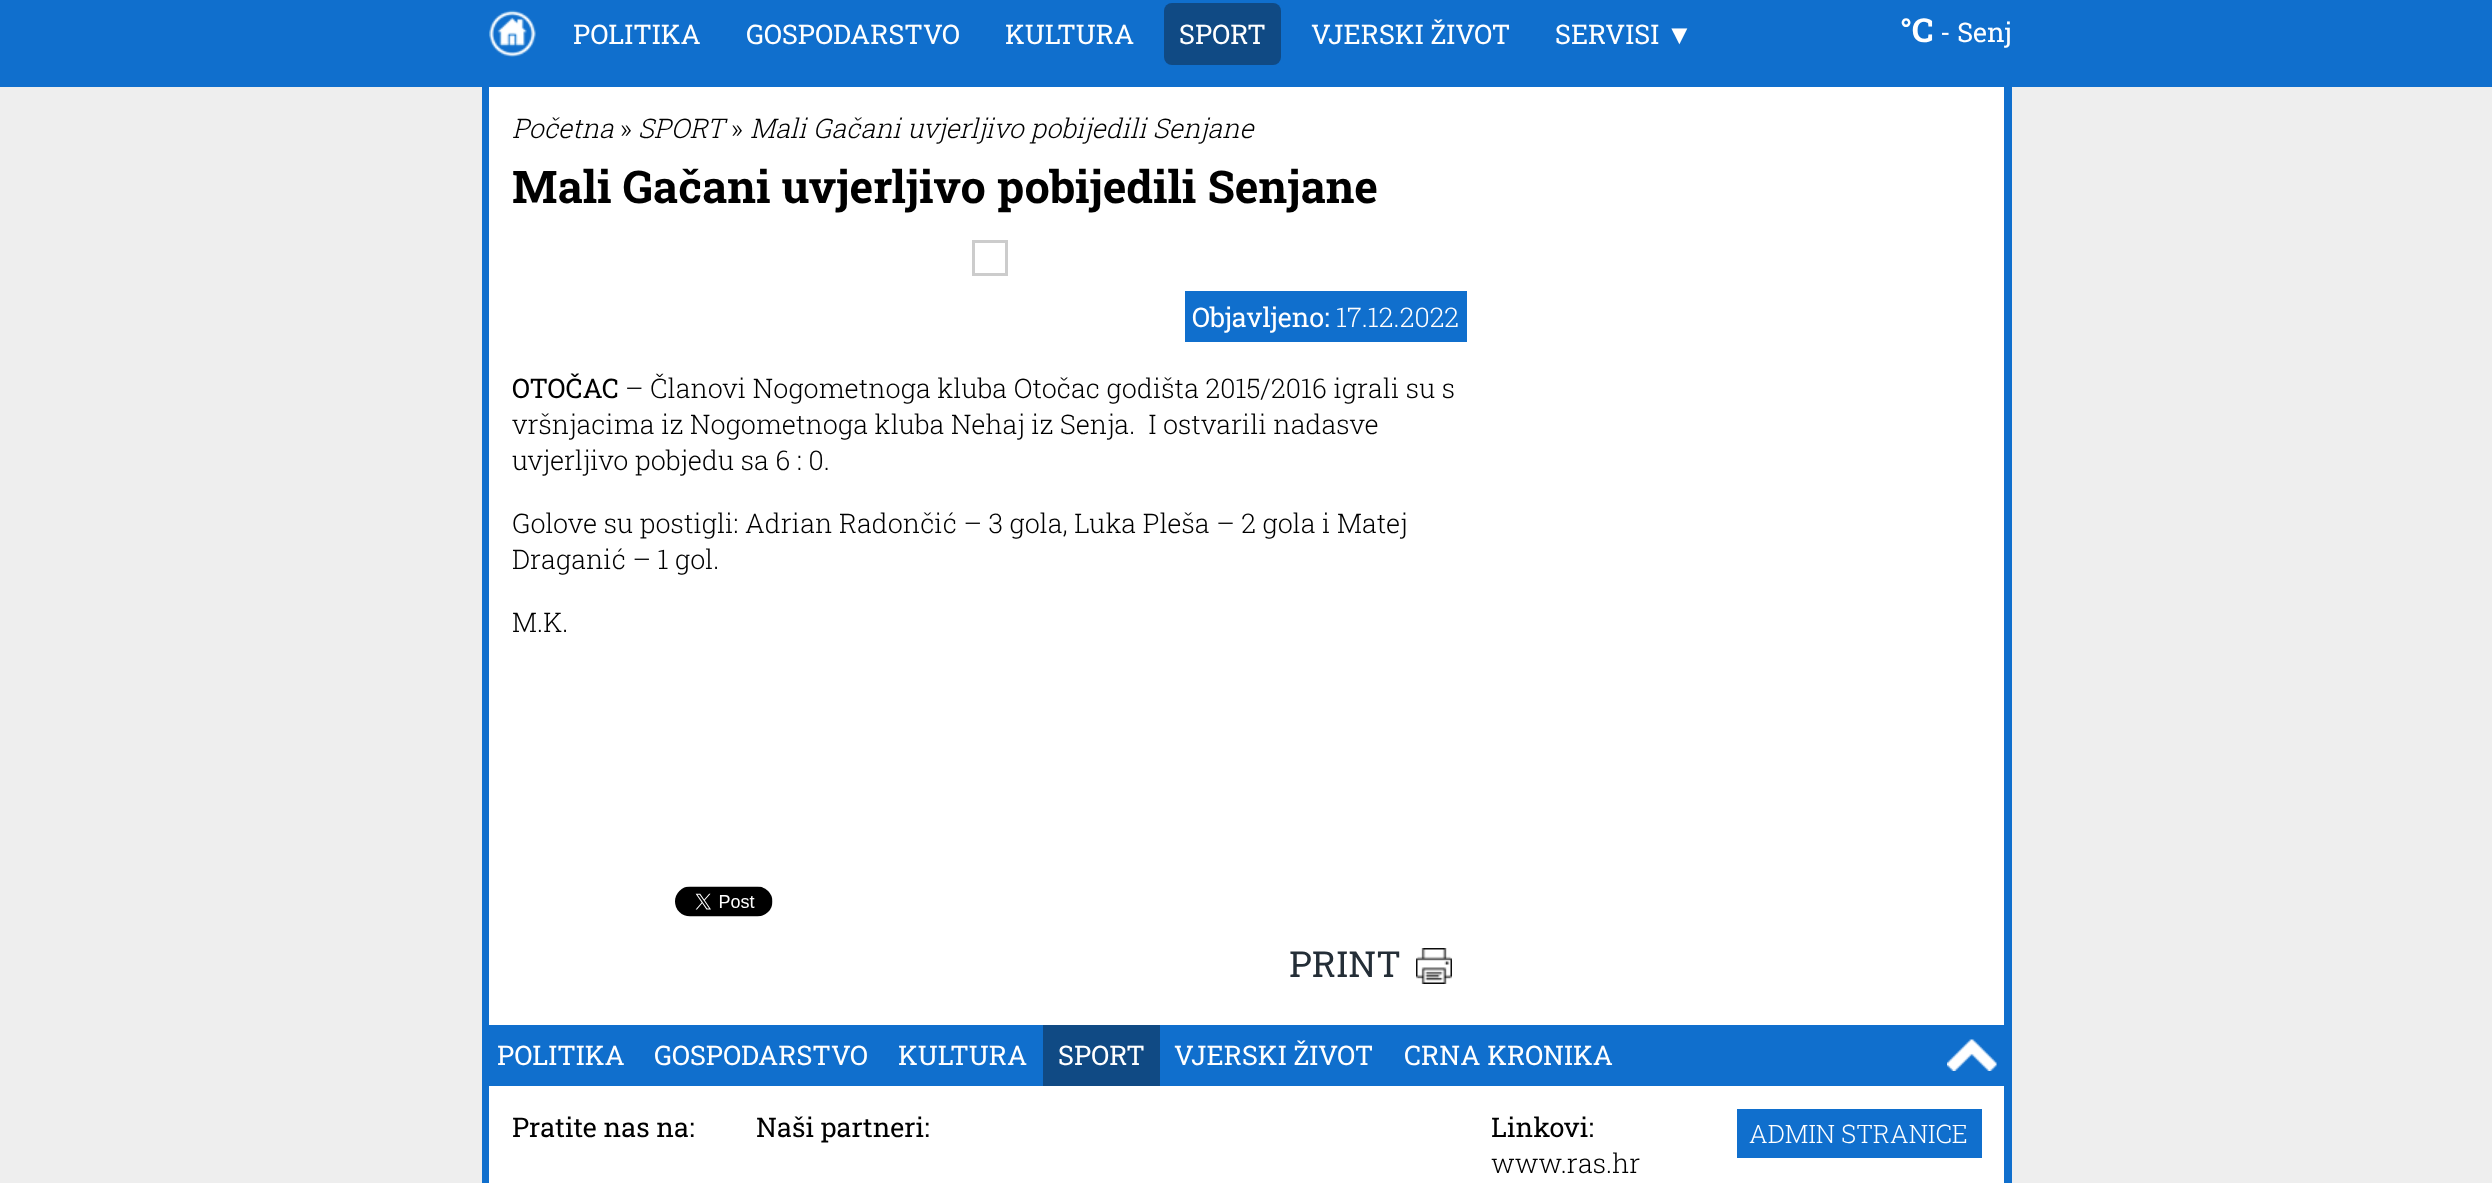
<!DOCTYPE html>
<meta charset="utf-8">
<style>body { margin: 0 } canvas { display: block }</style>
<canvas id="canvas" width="2492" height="1183"></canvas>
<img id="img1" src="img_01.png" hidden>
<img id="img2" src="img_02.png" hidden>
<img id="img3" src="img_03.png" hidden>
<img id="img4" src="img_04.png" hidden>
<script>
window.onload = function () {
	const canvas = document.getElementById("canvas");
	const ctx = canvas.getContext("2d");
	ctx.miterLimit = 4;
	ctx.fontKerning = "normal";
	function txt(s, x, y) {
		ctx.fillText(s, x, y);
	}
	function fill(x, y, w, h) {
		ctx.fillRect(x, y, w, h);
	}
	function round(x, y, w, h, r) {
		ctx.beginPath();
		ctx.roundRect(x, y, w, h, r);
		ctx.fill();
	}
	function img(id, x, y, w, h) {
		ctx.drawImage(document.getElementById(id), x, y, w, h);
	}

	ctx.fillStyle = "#106FCD";
	fill(0, 0, 2492, 1183);
	img("img1", 489, 10, 47, 47);
	ctx.fillStyle = "#104A84";
	round(1164, 3, 117, 62, 8);
	ctx.fillStyle = "#EEEEEE";
	fill(0, 87, 2492, 1096);
	ctx.fillStyle = "#FFFFFF";
	fill(489, 87, 1515, 938);
	ctx.fillStyle = "#106FCD";
	fill(2004, 87, 8, 938);
	fill(482, 87, 7, 938);
	ctx.strokeStyle = "#CCCCCC";
	ctx.lineWidth = 3;
	ctx.strokeRect(973.5, 241.5, 33, 33);
	fill(1185, 291, 282, 51);
	img("img2", 675, 886, 98, 31);
	img("img3", 1416, 948, 36, 36);
	fill(482, 1025, 1530, 158);
	ctx.fillStyle = "#104A84";
	fill(1043, 1025, 117, 61);
	img("img4", 1947, 1039, 50, 32);
	ctx.fillStyle = "#FFFFFF";
	fill(489, 1086, 1515, 97);
	ctx.fillStyle = "#106FCD";
	fill(1737, 1109, 245, 49);
	ctx.font = "27px Roboto Slab";
	ctx.fillStyle = "#FFFFFF";
	txt("POLITIKA", 573, 44);
	txt("GOSPODARSTVO", 746, 44);
	txt("KULTURA", 1005, 44);
	txt("SPORT", 1179, 44);
	txt("VJERSKI ŽIVOT", 1311, 44);
	txt("SERVISI", 1555, 44);
	ctx.font = "27px Liberation Serif";
	txt("▼", 1666, 44);
	ctx.font = "bold 33px Roboto Slab";
	txt("°C", 1900, 42);
	ctx.font = "27px Roboto Slab";
	txt("- Senj", 1940, 42);
	ctx.font = "italic 300 27px Roboto Slab";
	ctx.fillStyle = "#000000";
	txt("Početna", 512, 138);
	ctx.font = "300 27px Roboto Slab";
	txt("»", 620, 138);
	ctx.font = "italic 300 27px Roboto Slab";
	txt("SPORT", 638, 138);
	ctx.font = "300 27px Roboto Slab";
	txt("»", 731, 138);
	ctx.font = "italic 300 27px Roboto Slab";
	txt("Mali Gačani uvjerljivo pobijedili Senjane", 750, 138);
	ctx.font = "bold 45px Roboto Slab";
	txt("Mali Gačani uvjerljivo pobijedili Senjane", 512, 203);
	ctx.font = "27px Roboto Slab";
	ctx.fillStyle = "#FFFFFF";
	txt("Objavljeno:", 1192, 327);
	ctx.font = "300 27px Roboto Slab";
	txt("17.12.2022", 1336, 327);
	ctx.font = "27px Roboto Slab";
	ctx.fillStyle = "#000000";
	txt("OTOČAC", 512, 398);
	ctx.font = "300 27px Roboto Slab";
	txt("– Članovi Nogometnoga kluba Otočac godišta 2015/2016 igrali su s", 625, 398);
	txt("vršnjacima iz Nogometnoga kluba Nehaj iz Senja.  I ostvarili nadasve", 512, 434);
	txt("uvjerljivo pobjedu sa 6 : 0.", 512, 470);
	txt("Golove su postigli: Adrian Radončić – 3 gola, Luka Pleša – 2 gola i Matej", 512, 533);
	txt("Draganić – 1 gol.", 512, 569);
	txt("M.K.", 512, 632);
	ctx.font = "36px Roboto Slab";
	ctx.fillStyle = "#242E37";
	txt("PRINT", 1289, 977);
	ctx.font = "27px Roboto Slab";
	ctx.fillStyle = "#FFFFFF";
	txt("POLITIKA", 497, 1065);
	txt("GOSPODARSTVO", 654, 1065);
	txt("KULTURA", 898, 1065);
	txt("SPORT", 1058, 1065);
	txt("VJERSKI ŽIVOT", 1174, 1065);
	txt("CRNA KRONIKA", 1404, 1065);
	ctx.fillStyle = "#000000";
	txt("Pratite nas na:", 512, 1137);
	txt("Naši partneri:", 756, 1137);
	txt("Linkovi:", 1491, 1137);
	ctx.font = "300 27px Roboto Slab";
	txt("www.ras.hr", 1491, 1173);
	ctx.font = "300 25.5px Roboto Slab";
	ctx.fillStyle = "#FFFFFF";
	txt("ADMIN STRANICE", 1749, 1143);
};
</script>
